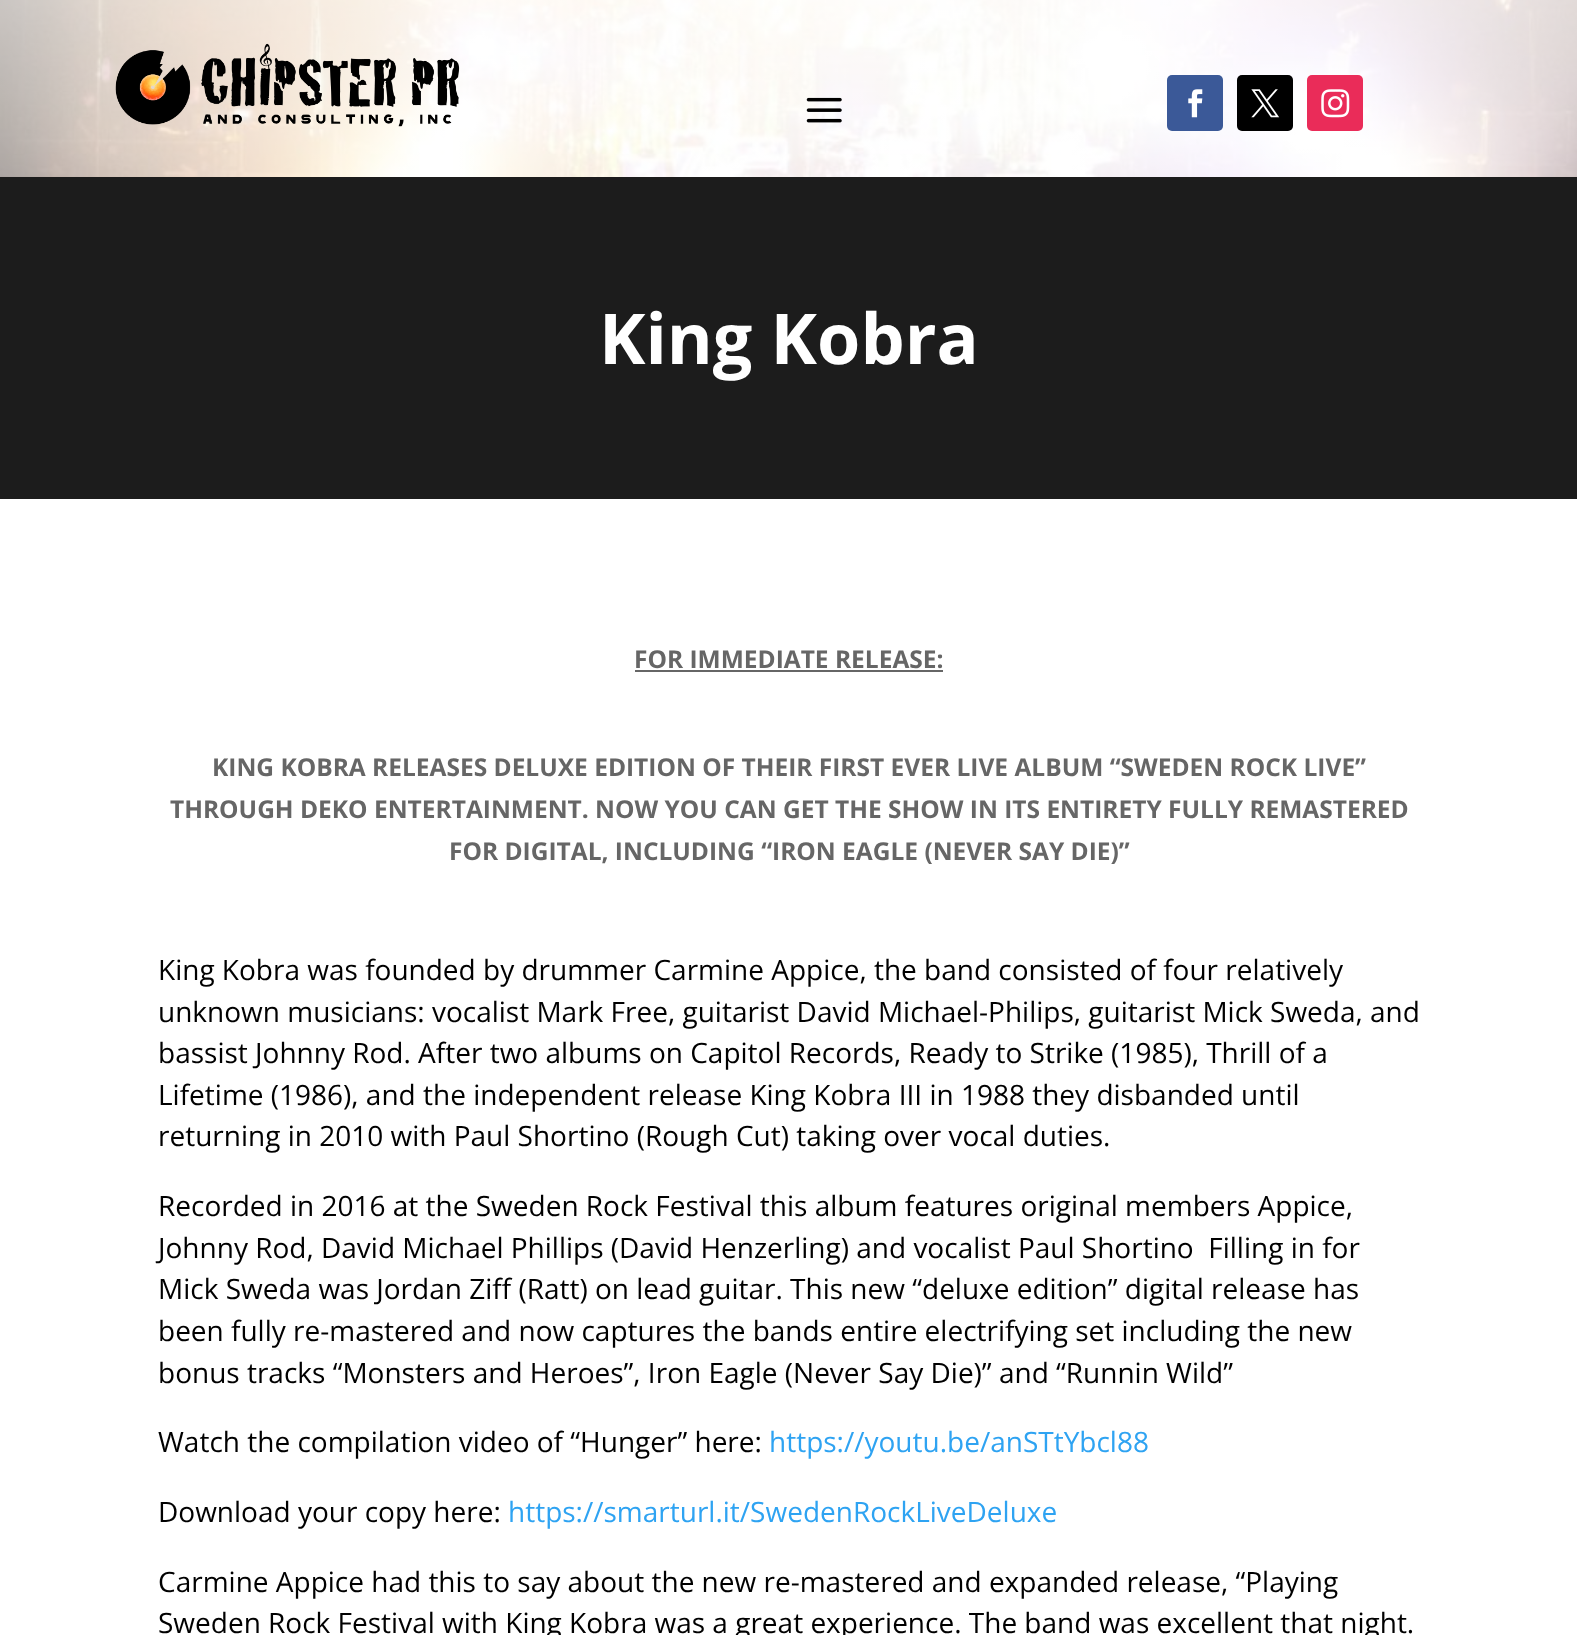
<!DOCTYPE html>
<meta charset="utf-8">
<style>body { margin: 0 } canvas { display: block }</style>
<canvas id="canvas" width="1577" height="1635"></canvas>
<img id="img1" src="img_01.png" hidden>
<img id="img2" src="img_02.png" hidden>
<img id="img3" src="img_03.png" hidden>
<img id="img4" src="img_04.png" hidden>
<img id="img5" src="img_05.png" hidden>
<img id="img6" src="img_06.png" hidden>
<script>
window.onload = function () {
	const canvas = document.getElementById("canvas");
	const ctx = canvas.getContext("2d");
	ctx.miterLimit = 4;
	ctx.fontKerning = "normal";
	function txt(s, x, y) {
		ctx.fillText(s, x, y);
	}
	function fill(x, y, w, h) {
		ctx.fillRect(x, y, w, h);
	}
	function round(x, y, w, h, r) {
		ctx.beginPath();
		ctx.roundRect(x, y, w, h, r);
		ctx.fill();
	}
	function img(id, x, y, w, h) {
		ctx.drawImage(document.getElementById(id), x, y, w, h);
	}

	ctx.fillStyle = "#FFFFFF";
	fill(0, 0, 1577, 1635);
	img("img1", 0, 0, 1577, 177);
	img("img2", 115, 43, 345, 84);
	img("img3", 806, 97, 36, 26);
	ctx.fillStyle = "#3B5998";
	round(1167, 75, 56, 56, 5);
	img("img4", 1188, 89, 15, 29);
	ctx.fillStyle = "#000000";
	round(1237, 75, 56, 56, 5);
	img("img5", 1251, 89, 29, 29);
	ctx.fillStyle = "#EA2C59";
	round(1307, 75, 56, 56, 5);
	img("img6", 1321, 89, 29, 29);
	ctx.fillStyle = "#1C1C1C";
	fill(0, 177, 1577, 322);
	ctx.fillStyle = "#666666";
	fill(635, 670, 308, 2);
	ctx.font = "bold 70px Open Sans";
	ctx.fillStyle = "#FFFFFF";
	txt("King Kobra", 599, 364);
	ctx.font = "bold 24.5px Open Sans";
	ctx.fillStyle = "#666666";
	txt("FOR IMMEDIATE RELEASE:", 634, 668);
	txt("KING KOBRA RELEASES DELUXE EDITION OF THEIR FIRST EVER LIVE ALBUM “SWEDEN ROCK LIVE”", 212, 776);
	txt("THROUGH DEKO ENTERTAINMENT. NOW YOU CAN GET THE SHOW IN ITS ENTIRETY FULLY REMASTERED", 170, 818);
	txt("FOR DIGITAL, INCLUDING “IRON EAGLE (NEVER SAY DIE)”", 449, 860);
	ctx.font = "28px Open Sans";
	ctx.fillStyle = "#000000";
	txt("King Kobra was founded by drummer Carmine Appice, the band consisted of four relatively", 158, 980);
	txt("unknown musicians: vocalist Mark Free, guitarist David Michael-Philips, guitarist Mick Sweda, and", 158, 1022);
	txt("bassist Johnny Rod. After two albums on Capitol Records, Ready to Strike (1985), Thrill of a", 158, 1063);
	txt("Lifetime (1986), and the independent release King Kobra III in 1988 they disbanded until", 158, 1105);
	txt("returning in 2010 with Paul Shortino (Rough Cut) taking over vocal duties.", 158, 1146);
	txt("Recorded in 2016 at the Sweden Rock Festival this album features original members Appice,", 158, 1216);
	txt("Johnny Rod, David Michael Phillips (David Henzerling) and vocalist Paul Shortino  Filling in for", 158, 1258);
	txt("Mick Sweda was Jordan Ziff (Ratt) on lead guitar. This new “deluxe edition” digital release has", 158, 1299);
	txt("been fully re-mastered and now captures the bands entire electrifying set including the new", 158, 1341);
	txt("bonus tracks “Monsters and Heroes”, Iron Eagle (Never Say Die)” and “Runnin Wild”", 158, 1383);
	txt("Watch the compilation video of “Hunger” here:", 158, 1452);
	ctx.fillStyle = "#2EA3F2";
	txt("https://youtu.be/anSTtYbcl88", 769, 1452);
	ctx.fillStyle = "#000000";
	txt("Download your copy here:", 158, 1522);
	ctx.fillStyle = "#2EA3F2";
	txt("https://smarturl.it/SwedenRockLiveDeluxe", 508, 1522);
	ctx.fillStyle = "#000000";
	txt("Carmine Appice had this to say about the new re-mastered and expanded release, “Playing", 158, 1592);
	txt("Sweden Rock Festival with King Kobra was a great experience. The band was excellent that night.", 158, 1633);
};
</script>
